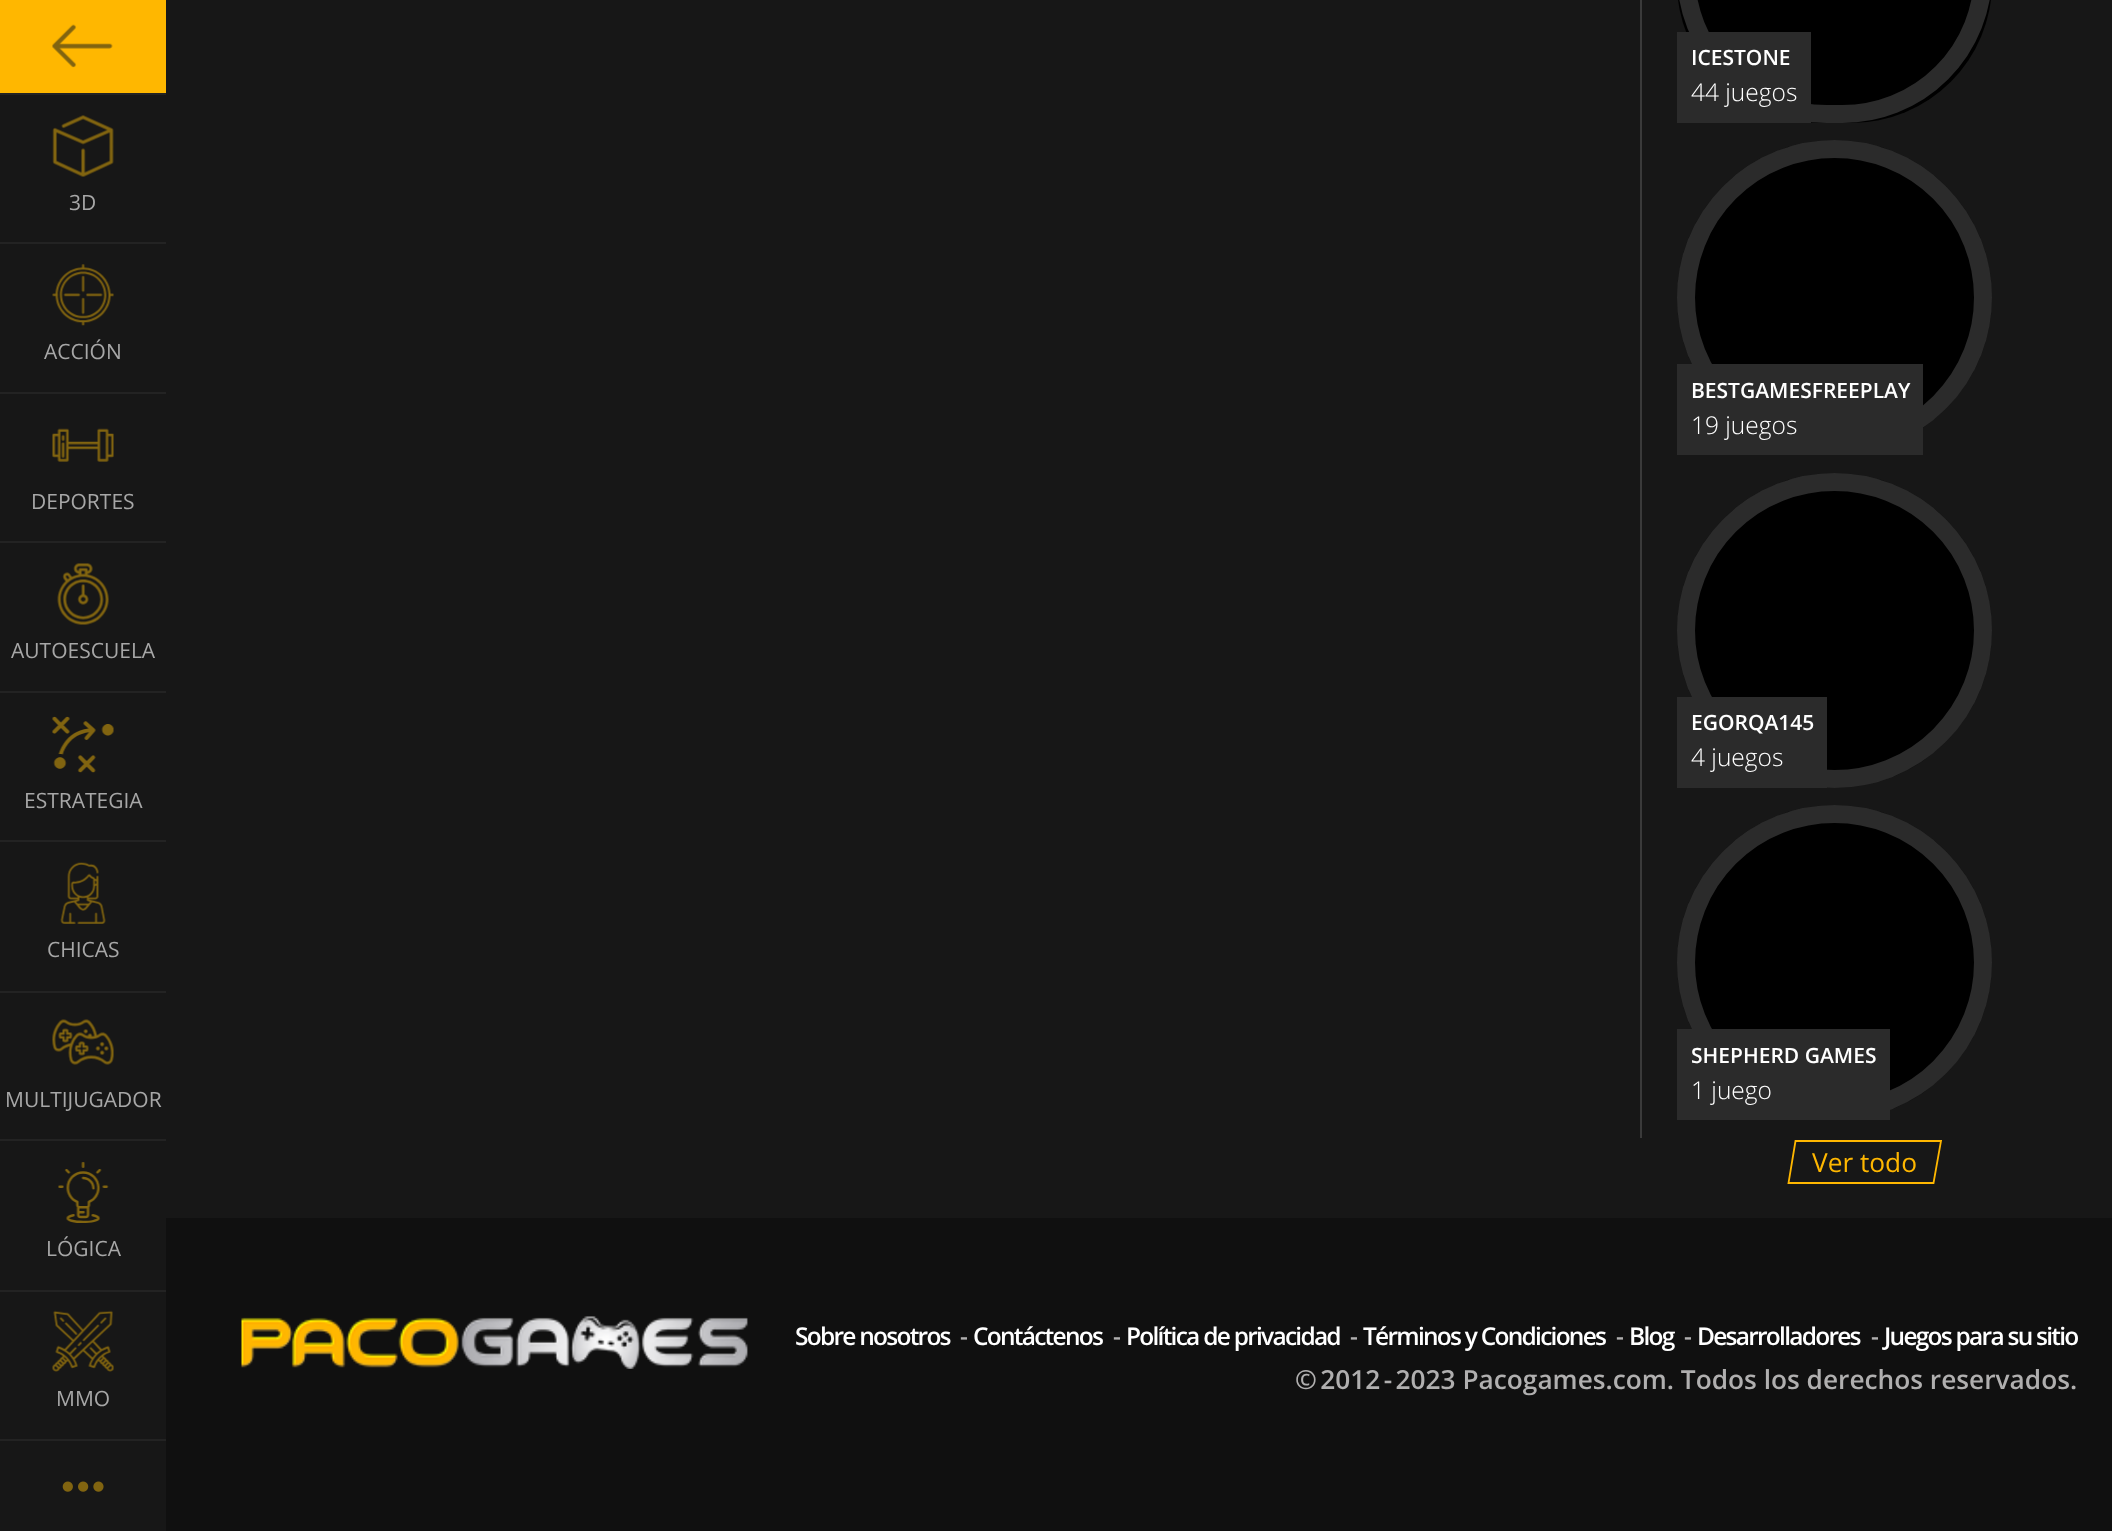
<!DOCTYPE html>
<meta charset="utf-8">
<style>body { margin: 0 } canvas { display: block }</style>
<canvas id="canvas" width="2112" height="1531"></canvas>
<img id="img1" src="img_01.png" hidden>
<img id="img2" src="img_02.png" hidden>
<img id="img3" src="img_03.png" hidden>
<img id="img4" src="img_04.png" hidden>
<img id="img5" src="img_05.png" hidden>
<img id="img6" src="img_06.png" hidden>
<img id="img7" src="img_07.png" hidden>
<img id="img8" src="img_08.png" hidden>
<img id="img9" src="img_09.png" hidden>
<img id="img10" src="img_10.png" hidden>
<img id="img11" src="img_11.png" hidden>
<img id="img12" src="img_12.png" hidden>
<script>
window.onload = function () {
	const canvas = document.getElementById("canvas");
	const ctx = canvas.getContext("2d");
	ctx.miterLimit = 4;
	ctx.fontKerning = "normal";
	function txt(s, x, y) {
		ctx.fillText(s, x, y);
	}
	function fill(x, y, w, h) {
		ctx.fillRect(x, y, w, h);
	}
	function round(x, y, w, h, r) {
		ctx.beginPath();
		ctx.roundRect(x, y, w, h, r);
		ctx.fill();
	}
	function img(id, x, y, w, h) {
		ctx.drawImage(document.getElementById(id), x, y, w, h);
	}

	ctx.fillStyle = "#171717";
	fill(0, 0, 2112, 1531);
	ctx.fillStyle = "#FFB700";
	fill(0, 0, 166, 93);
	img("img1", 52, 24, 61, 44);
	ctx.fillStyle = "#232323";
	fill(0, 93, 166, 2);
	img("img2", 52, 115, 62, 62);
	fill(0, 242, 166, 2);
	img("img3", 52, 264, 62, 62);
	fill(0, 392, 166, 2);
	img("img4", 52, 428, 62, 34);
	fill(0, 541, 166, 2);
	img("img5", 57, 563, 52, 62);
	fill(0, 691, 166, 2);
	img("img6", 52, 716, 62, 57);
	fill(0, 840, 166, 2);
	img("img7", 60, 862, 46, 62);
	fill(0, 991, 166, 2);
	img("img8", 52, 1019, 62, 46);
	fill(0, 1139, 166, 2);
	img("img9", 58, 1162, 51, 61);
	fill(0, 1290, 166, 2);
	img("img10", 52, 1310, 62, 62);
	fill(0, 1439, 166, 2);
	img("img11", 62, 1481, 42, 11);
	ctx.fillStyle = "#3A3A3A";
	fill(1640, 0, 2, 1138);
	ctx.fillStyle = "#000000";
	round(1677, -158, 315, 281, 157.5);
	ctx.beginPath();
	ctx.roundRect(1686, -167, 297, 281, 148.5);
	ctx.strokeStyle = "rgba(255, 255, 255, 0.17)";
	ctx.lineWidth = 18;
	ctx.stroke();
	ctx.fillStyle = "#2B2B2B";
	fill(1677, 32, 134, 91);
	ctx.fillStyle = "#000000";
	ctx.beginPath();
	ctx.arc(1834.5, 297.5, 157.5, 0, Math.PI * 2);
	ctx.fill();
	ctx.beginPath();
	ctx.arc(1834.5, 297.5, 148.5, 0, Math.PI * 2);
	ctx.stroke();
	ctx.fillStyle = "#2B2B2B";
	fill(1677, 364, 246, 91);
	ctx.fillStyle = "#000000";
	ctx.beginPath();
	ctx.arc(1834.5, 630.5, 157.5, 0, Math.PI * 2);
	ctx.fill();
	ctx.beginPath();
	ctx.arc(1834.5, 630.5, 148.5, 0, Math.PI * 2);
	ctx.stroke();
	ctx.fillStyle = "#2B2B2B";
	fill(1677, 697, 150, 91);
	ctx.fillStyle = "#000000";
	ctx.beginPath();
	ctx.arc(1834.5, 962.5, 157.5, 0, Math.PI * 2);
	ctx.fill();
	ctx.beginPath();
	ctx.arc(1834.5, 962.5, 148.5, 0, Math.PI * 2);
	ctx.stroke();
	ctx.fillStyle = "#2B2B2B";
	fill(1677, 1029, 213, 91);
	ctx.beginPath();
	ctx.moveTo(1795.5, 1141);
	ctx.lineTo(1941, 1141);
	ctx.lineTo(1933.5, 1183);
	ctx.lineTo(1788.5, 1183);
	ctx.closePath();
	ctx.strokeStyle = "#FFB700";
	ctx.lineWidth = 1.8;
	ctx.stroke();
	ctx.fillStyle = "#101010";
	fill(166, 1218, 1946, 313);
	img("img12", 241, 1316, 507, 53);
	ctx.font = "21px Open Sans";
	ctx.fillStyle = "#A7A7A7";
	txt("3D", 69, 210);
	txt("ACCIÓN", 44, 359);
	txt("DEPORTES", 31, 509);
	txt("AUTOESCUELA", 11, 658);
	txt("ESTRATEGIA", 24, 808);
	txt("CHICAS", 47, 957);
	txt("MULTIJUGADOR", 5, 1107);
	txt("LÓGICA", 46, 1256);
	txt("MMO", 56, 1406);
	ctx.font = "600 21px Open Sans";
	ctx.fillStyle = "#FFFFFF";
	txt("ICESTONE", 1691, 65);
	ctx.font = "300 24.5px Open Sans";
	txt("44 juegos", 1691, 101);
	ctx.font = "600 21px Open Sans";
	txt("BESTGAMESFREEPLAY", 1691, 398);
	ctx.font = "300 24.5px Open Sans";
	txt("19 juegos", 1691, 434);
	ctx.font = "600 21px Open Sans";
	txt("EGORQA145", 1691, 730);
	ctx.font = "300 24.5px Open Sans";
	txt("4 juegos", 1691, 766);
	ctx.font = "600 21px Open Sans";
	txt("SHEPHERD GAMES", 1691, 1063);
	ctx.font = "300 24.5px Open Sans";
	txt("1 juego", 1691, 1099);
	ctx.font = "26.25px Open Sans";
	ctx.fillStyle = "#FFB700";
	txt("Ver todo", 1812, 1172);
	ctx.letterSpacing = "-1.75px";
	ctx.font = "600 24.5px Open Sans";
	ctx.fillStyle = "#FFFFFF";
	txt("Sobre nosotros", 795, 1345);
	ctx.fillStyle = "#B0AFAF";
	txt("-", 960, 1345);
	ctx.fillStyle = "#FFFFFF";
	txt("Contáctenos", 973, 1345);
	ctx.fillStyle = "#B0AFAF";
	txt("-", 1113, 1345);
	ctx.fillStyle = "#FFFFFF";
	txt("Política de privacidad", 1126, 1345);
	ctx.fillStyle = "#B0AFAF";
	txt("-", 1350, 1345);
	ctx.fillStyle = "#FFFFFF";
	txt("Términos y Condiciones", 1363, 1345);
	ctx.fillStyle = "#B0AFAF";
	txt("-", 1616, 1345);
	ctx.fillStyle = "#FFFFFF";
	txt("Blog", 1629, 1345);
	ctx.fillStyle = "#B0AFAF";
	txt("-", 1684, 1345);
	ctx.fillStyle = "#FFFFFF";
	txt("Desarrolladores", 1697, 1345);
	ctx.fillStyle = "#B0AFAF";
	txt("-", 1871, 1345);
	ctx.fillStyle = "#FFFFFF";
	txt("Juegos para su sitio", 1884, 1345);
	ctx.letterSpacing = "0px";
	ctx.font = "600 26.25px Open Sans";
	ctx.fillStyle = "#B0AFAF";
	txt("© 2012 - 2023 Pacogames.com. Todos los derechos reservados.", 1295, 1389);
};
</script>
